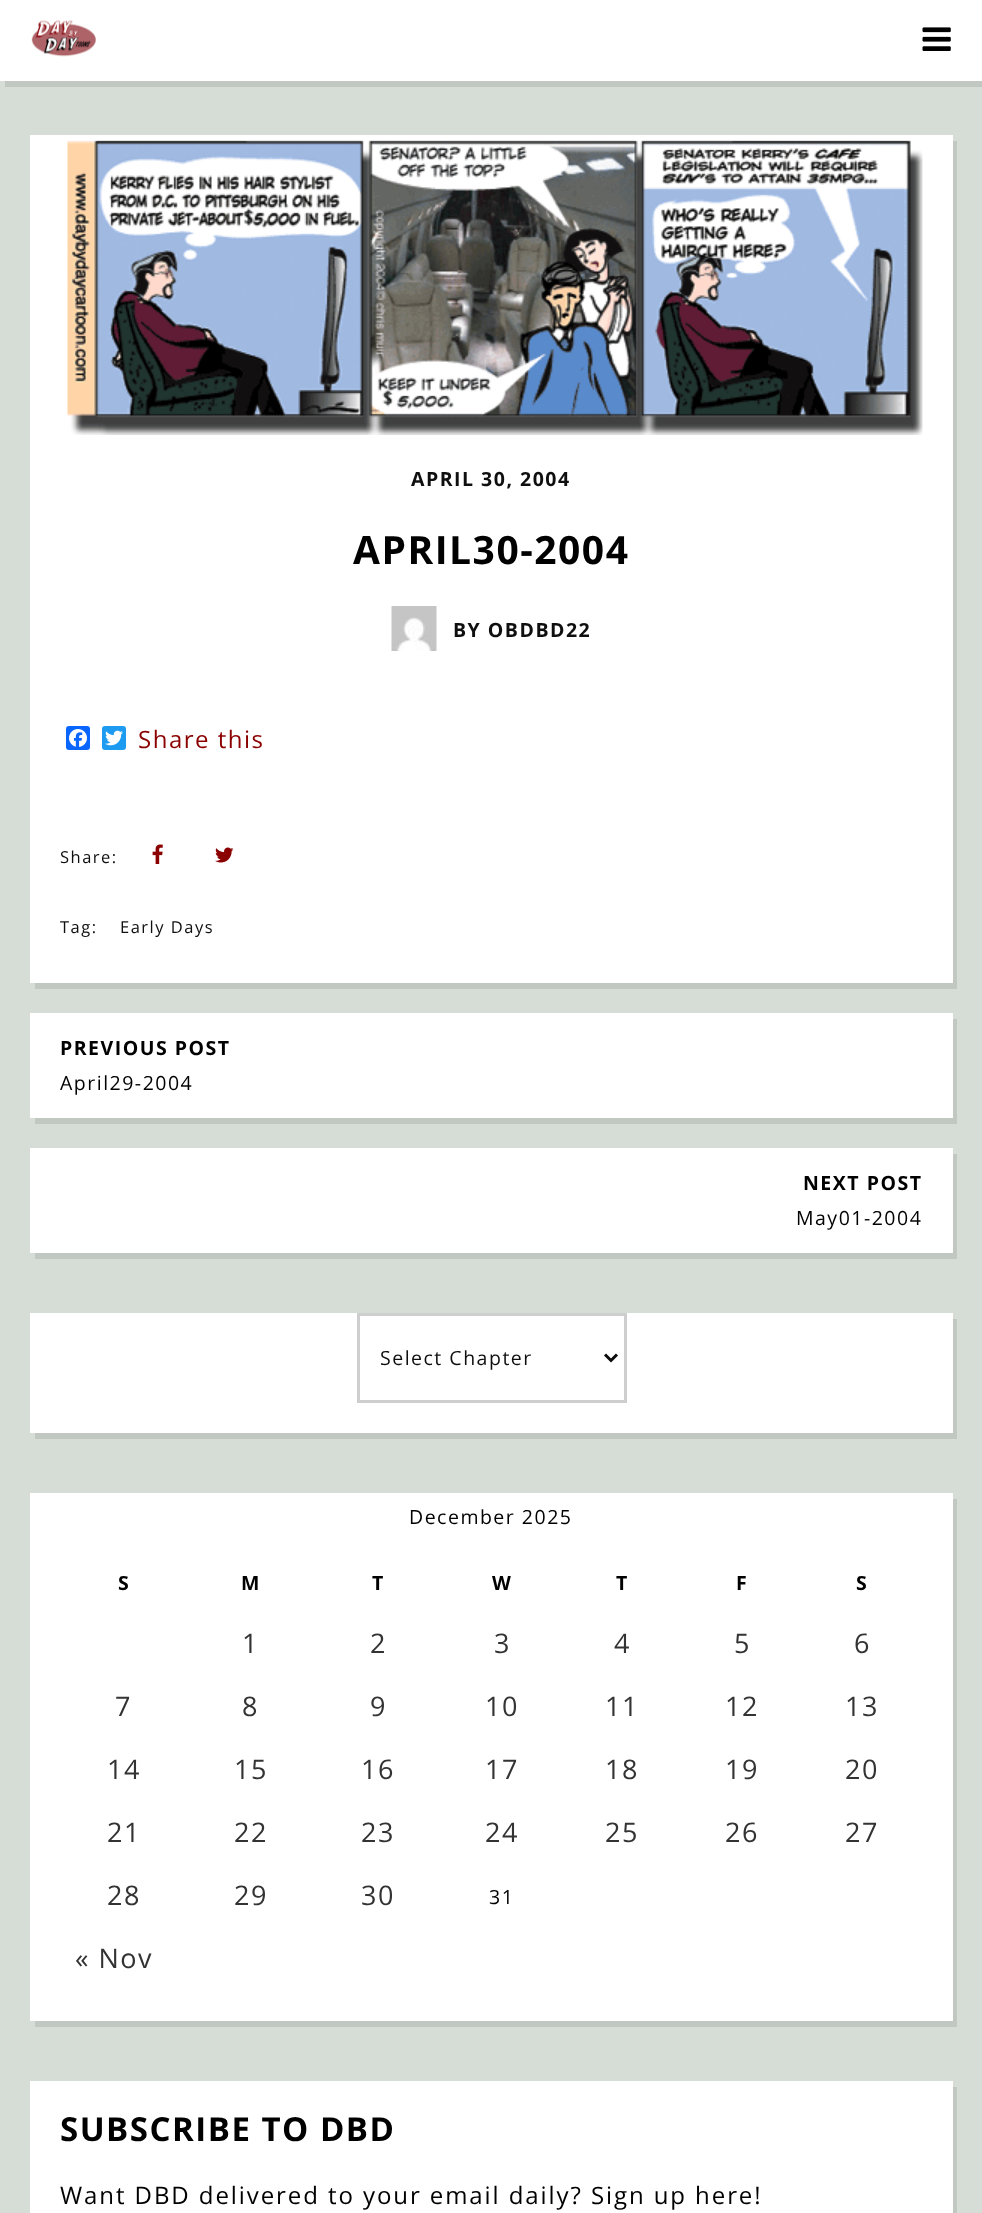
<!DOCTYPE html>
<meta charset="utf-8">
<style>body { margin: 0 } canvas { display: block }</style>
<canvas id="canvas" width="982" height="2213"></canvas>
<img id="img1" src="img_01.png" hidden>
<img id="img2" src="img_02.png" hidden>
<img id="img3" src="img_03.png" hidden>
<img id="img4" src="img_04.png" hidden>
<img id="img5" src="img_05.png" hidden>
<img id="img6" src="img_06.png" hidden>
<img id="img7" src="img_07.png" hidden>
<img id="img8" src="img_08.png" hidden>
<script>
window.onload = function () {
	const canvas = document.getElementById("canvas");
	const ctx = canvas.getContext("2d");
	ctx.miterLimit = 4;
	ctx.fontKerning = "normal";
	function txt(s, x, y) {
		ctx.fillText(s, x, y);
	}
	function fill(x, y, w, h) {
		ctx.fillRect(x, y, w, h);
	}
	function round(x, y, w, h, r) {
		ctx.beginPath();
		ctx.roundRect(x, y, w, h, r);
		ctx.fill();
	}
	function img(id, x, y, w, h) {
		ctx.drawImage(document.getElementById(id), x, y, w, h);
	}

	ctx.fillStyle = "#D6DDD6";
	fill(0, 0, 982, 2213);
	ctx.fillStyle = "#C1C7C1";
	ctx.beginPath();
	ctx.moveTo(5, 81);
	ctx.lineTo(5, 87);
	ctx.lineTo(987, 87);
	ctx.lineTo(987, 6);
	ctx.lineTo(982, 6);
	ctx.lineTo(982, 81);
	ctx.closePath();
	ctx.fill();
	ctx.fillStyle = "#FFFFFF";
	fill(0, 0, 982, 81);
	img("img1", 31, 20, 65, 37);
	img("img2", 922, 27, 29, 24);
	ctx.fillStyle = "#C1C7C1";
	ctx.beginPath();
	ctx.moveTo(35, 982);
	ctx.lineTo(35, 989);
	ctx.lineTo(957, 989);
	ctx.lineTo(957, 141);
	ctx.lineTo(952, 141);
	ctx.lineTo(952, 982);
	ctx.closePath();
	ctx.fill();
	ctx.fillStyle = "#FFFFFF";
	fill(30, 135, 923, 848);
	img("img3", 67, 140, 856, 295);
	img("img4", 391, 606, 46, 45);
	ctx.fillStyle = "#0866FF";
	round(66, 726, 24, 24, 3);
	img("img5", 69, 729, 18, 18);
	ctx.fillStyle = "#1D9BF0";
	round(102, 726, 24, 24, 3);
	img("img6", 105, 730, 18, 16);
	img("img7", 152, 844, 11, 20);
	img("img8", 215, 847, 19, 16);
	ctx.fillStyle = "#C1C7C1";
	ctx.beginPath();
	ctx.moveTo(35, 1118);
	ctx.lineTo(35, 1124);
	ctx.lineTo(957, 1124);
	ctx.lineTo(957, 1019);
	ctx.lineTo(952, 1019);
	ctx.lineTo(952, 1118);
	ctx.closePath();
	ctx.fill();
	ctx.fillStyle = "#FFFFFF";
	fill(30, 1013, 923, 105);
	ctx.fillStyle = "#C1C7C1";
	ctx.beginPath();
	ctx.moveTo(35, 1252);
	ctx.lineTo(35, 1259);
	ctx.lineTo(957, 1259);
	ctx.lineTo(957, 1154);
	ctx.lineTo(952, 1154);
	ctx.lineTo(952, 1252);
	ctx.closePath();
	ctx.fill();
	ctx.fillStyle = "#FFFFFF";
	fill(30, 1148, 923, 105);
	ctx.fillStyle = "#C1C7C1";
	ctx.beginPath();
	ctx.moveTo(35, 1432);
	ctx.lineTo(35, 1439);
	ctx.lineTo(957, 1439);
	ctx.lineTo(957, 1319);
	ctx.lineTo(952, 1319);
	ctx.lineTo(952, 1432);
	ctx.closePath();
	ctx.fill();
	ctx.fillStyle = "#FFFFFF";
	fill(30, 1313, 923, 120);
	ctx.strokeStyle = "#CECECE";
	ctx.lineWidth = 3;
	ctx.strokeRect(358.5, 1314.5, 267, 87);
	ctx.beginPath();
	ctx.moveTo(605, 1354.5);
	ctx.lineTo(611, 1360.5);
	ctx.lineTo(617, 1354.5);
	ctx.strokeStyle = "#0C0C0C";
	ctx.stroke();
	ctx.fillStyle = "#C1C7C1";
	ctx.beginPath();
	ctx.moveTo(35, 2020);
	ctx.lineTo(35, 2027);
	ctx.lineTo(957, 2027);
	ctx.lineTo(957, 1499);
	ctx.lineTo(952, 1499);
	ctx.lineTo(952, 2020);
	ctx.closePath();
	ctx.fill();
	ctx.fillStyle = "#FFFFFF";
	fill(30, 1493, 923, 528);
	ctx.fillStyle = "#C1C7C1";
	ctx.beginPath();
	ctx.moveTo(35, 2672);
	ctx.lineTo(35, 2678);
	ctx.lineTo(957, 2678);
	ctx.lineTo(957, 2087);
	ctx.lineTo(952, 2087);
	ctx.lineTo(952, 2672);
	ctx.closePath();
	ctx.fill();
	ctx.fillStyle = "#FFFFFF";
	fill(30, 2081, 923, 132);
	ctx.letterSpacing = "1.5px";
	ctx.font = "bold 19.5px Open Sans";
	ctx.fillStyle = "#0F0F0F";
	txt("APRIL 30, 2004", 411, 486);
	ctx.font = "bold 39px Open Sans";
	ctx.fillStyle = "#000000";
	txt("APRIL30-2004", 353, 564);
	ctx.font = "bold 19.5px Open Sans";
	ctx.fillStyle = "#0F0F0F";
	txt("BY OBDBD22", 453, 637);
	ctx.font = "24px Open Sans";
	ctx.fillStyle = "#8B0000";
	txt("Share this", 138, 748);
	ctx.font = "16.5px Open Sans";
	ctx.fillStyle = "#0F0F0F";
	txt("Share:", 60, 863);
	txt("Tag:", 60, 933);
	txt("Early Days", 120, 933);
	ctx.font = "bold 19.5px Open Sans";
	ctx.fillStyle = "#000000";
	txt("PREVIOUS POST", 60, 1055);
	ctx.font = "19.5px Open Sans";
	txt("April29-2004", 60, 1090);
	ctx.font = "bold 19.5px Open Sans";
	txt("NEXT POST", 803, 1190);
	ctx.font = "19.5px Open Sans";
	txt("May01-2004", 796, 1225);
	ctx.fillStyle = "#0F0F0F";
	txt("Select Chapter", 380, 1365);
	ctx.fillStyle = "#000000";
	txt("December 2025", 409, 1524);
	ctx.font = "bold 19.5px Open Sans";
	txt("S", 118, 1590);
	txt("M", 241, 1590);
	txt("T", 372, 1590);
	txt("W", 492, 1590);
	txt("T", 616, 1590);
	txt("F", 736, 1590);
	txt("S", 856, 1590);
	ctx.font = "27px Open Sans";
	ctx.fillStyle = "#333333";
	txt("1", 242, 1653);
	txt("2", 370, 1653);
	txt("3", 494, 1653);
	txt("4", 614, 1653);
	txt("5", 734, 1653);
	txt("6", 854, 1653);
	txt("7", 115, 1716);
	txt("8", 242, 1716);
	txt("9", 370, 1716);
	txt("10", 485, 1716);
	txt("11", 605, 1716);
	txt("12", 725, 1716);
	txt("13", 845, 1716);
	txt("14", 107, 1779);
	txt("15", 234, 1779);
	txt("16", 361, 1779);
	txt("17", 485, 1779);
	txt("18", 605, 1779);
	txt("19", 725, 1779);
	txt("20", 845, 1779);
	txt("21", 107, 1842);
	txt("22", 234, 1842);
	txt("23", 361, 1842);
	txt("24", 485, 1842);
	txt("25", 605, 1842);
	txt("26", 725, 1842);
	txt("27", 845, 1842);
	txt("28", 107, 1905);
	txt("29", 234, 1905);
	txt("30", 361, 1905);
	ctx.font = "19.5px Open Sans";
	ctx.fillStyle = "#000000";
	txt("31", 489, 1904);
	ctx.font = "27px Open Sans";
	ctx.fillStyle = "#333333";
	txt("« Nov", 75, 1968);
	ctx.font = "bold 33px Open Sans";
	ctx.fillStyle = "#000000";
	txt("SUBSCRIBE TO DBD", 60, 2141);
	ctx.letterSpacing = "1.92px";
	ctx.font = "24px Open Sans";
	txt("Want DBD delivered to your email daily? Sign up here!", 60, 2204);
};
</script>
